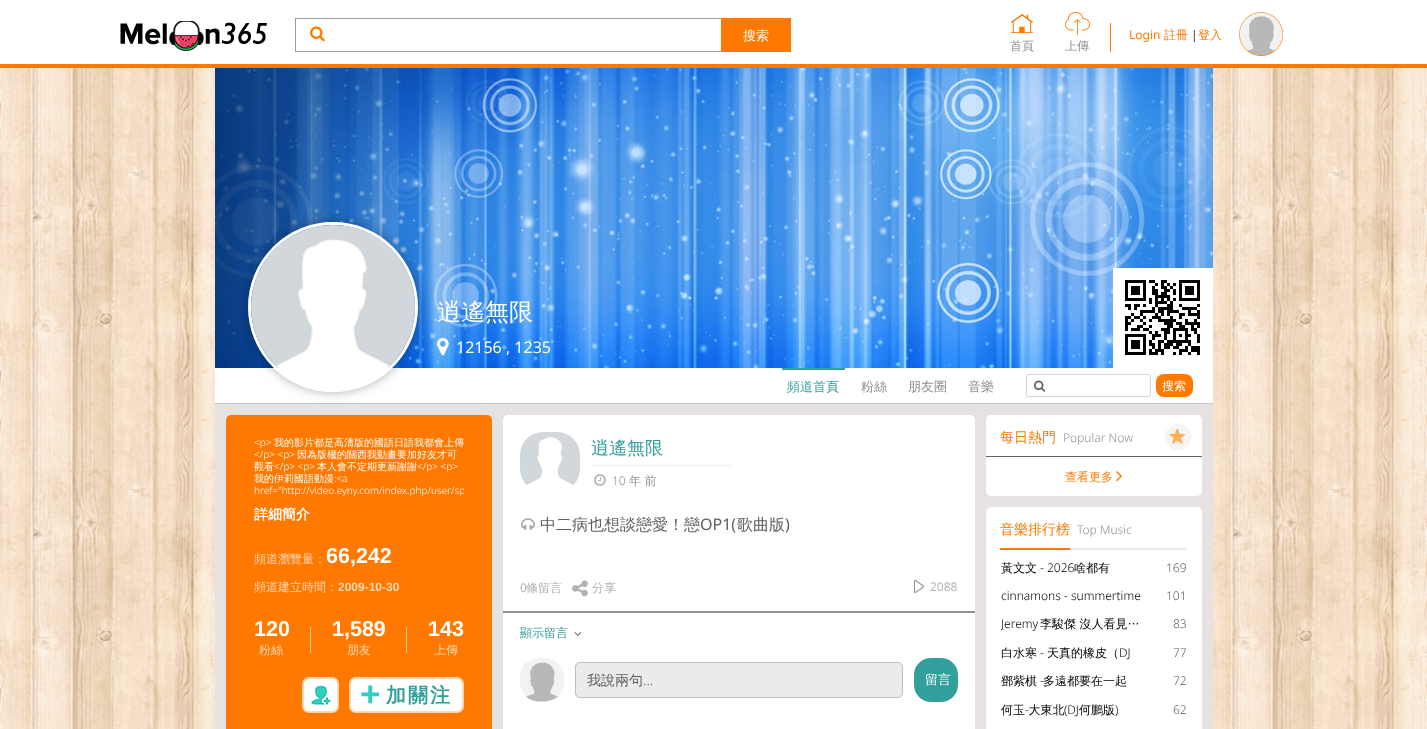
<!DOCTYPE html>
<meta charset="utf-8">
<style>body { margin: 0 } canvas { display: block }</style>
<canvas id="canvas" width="1427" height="729"></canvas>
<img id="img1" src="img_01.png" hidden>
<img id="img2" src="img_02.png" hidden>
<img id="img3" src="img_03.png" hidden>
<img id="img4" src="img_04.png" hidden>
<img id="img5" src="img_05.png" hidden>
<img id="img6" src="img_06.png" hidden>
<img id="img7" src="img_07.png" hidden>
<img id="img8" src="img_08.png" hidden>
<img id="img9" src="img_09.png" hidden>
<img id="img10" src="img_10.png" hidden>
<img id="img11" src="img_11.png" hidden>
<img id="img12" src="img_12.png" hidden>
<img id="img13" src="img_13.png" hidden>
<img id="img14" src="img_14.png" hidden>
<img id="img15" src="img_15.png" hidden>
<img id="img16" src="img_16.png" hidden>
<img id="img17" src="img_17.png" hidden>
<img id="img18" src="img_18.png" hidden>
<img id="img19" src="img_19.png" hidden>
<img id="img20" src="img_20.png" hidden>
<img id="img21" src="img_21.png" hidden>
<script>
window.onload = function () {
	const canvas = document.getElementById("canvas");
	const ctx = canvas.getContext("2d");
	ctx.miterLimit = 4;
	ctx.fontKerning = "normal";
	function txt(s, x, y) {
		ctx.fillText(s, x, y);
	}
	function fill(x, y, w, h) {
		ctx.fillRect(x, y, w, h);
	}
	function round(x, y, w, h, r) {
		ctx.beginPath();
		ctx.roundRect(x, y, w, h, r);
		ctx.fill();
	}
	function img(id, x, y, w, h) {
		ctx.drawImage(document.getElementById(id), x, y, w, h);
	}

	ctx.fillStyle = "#FFFFFF";
	fill(0, 0, 1427, 729);
	img("img1", 0, 68, 1427, 661);
	ctx.fillStyle = "#FF7900";
	fill(0, 64, 1427, 4);
	img("img2", 120, 21, 147, 30);
	ctx.fillStyle = "#9E9D9D";
	fill(295, 18, 426, 1);
	fill(295, 51, 426, 1);
	fill(295, 18, 1, 34);
	img("img3", 310, 26, 15, 16);
	ctx.fillStyle = "#FF7900";
	fill(721, 18, 70, 34);
	img("img4", 1239, 12, 44, 44);
	fill(1011, 14, 22, 19);
	img("img5", 1011, 14, 22, 20);
	fill(1065, 12, 25, 23);
	img("img6", 1065, 12, 25, 23);
	fill(1110, 23, 1, 29);
	img("img7", 215, 68, 998, 300);
	ctx.fillStyle = "#C6C5C5";
	fill(215, 403, 998, 1);
	ctx.fillStyle = "#FFFFFF";
	fill(215, 368, 998, 35);
	ctx.fillStyle = "#E6E2E1";
	fill(215, 404, 998, 325);
	ctx.save();
	ctx.beginPath();
	ctx.moveTo(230, 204);
	ctx.lineTo(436, 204);
	ctx.lineTo(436, 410);
	ctx.lineTo(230, 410);
	ctx.closePath();
	ctx.moveTo(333, 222);
	ctx.bezierCurveTo(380, 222, 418, 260, 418, 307);
	ctx.bezierCurveTo(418, 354, 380, 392, 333, 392);
	ctx.bezierCurveTo(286, 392, 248, 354, 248, 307);
	ctx.bezierCurveTo(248, 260, 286, 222, 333, 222);
	ctx.closePath();
	ctx.clip("evenodd");
	ctx.fillStyle = "rgba(0, 0, 0, 0.32)";
	ctx.filter = "blur(5.5px)";
	ctx.beginPath();
	ctx.roundRect(248, 222, 170, 170, 85);
	ctx.fill();
	ctx.filter = "none";
	ctx.restore();
	ctx.beginPath();
	ctx.arc(333, 307, 83.5, 0, Math.PI * 2);
	ctx.strokeStyle = "#FFFFFF";
	ctx.lineWidth = 3;
	ctx.stroke();
	img("img8", 251, 225, 164, 143);
	img("img9", 437, 338, 12, 18);
	img("img10", 1113, 268, 100, 100);
	ctx.fillStyle = "#319F9C";
	fill(782, 368, 63, 2);
	ctx.beginPath();
	ctx.roundRect(1026.5, 374.5, 124, 22, 1.5);
	ctx.strokeStyle = "#D6D6D6";
	ctx.lineWidth = 1;
	ctx.stroke();
	img("img11", 1034, 380, 12, 12);
	ctx.fillStyle = "#FF7900";
	round(1156, 374, 37, 23, 8);
	round(226, 415, 266, 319, 5);
	ctx.fillStyle = "#FFC590";
	fill(310, 627, 1, 26);
	fill(406, 627, 1, 26);
	ctx.fillStyle = "#FFFFFF";
	ctx.beginPath();
	ctx.roundRect(303, 678, 35, 34, 6);
	ctx.fill();
	ctx.strokeStyle = "#FFD7B3";
	ctx.lineWidth = 2;
	ctx.stroke();
	img("img12", 311, 685, 20, 20);
	ctx.beginPath();
	ctx.roundRect(350, 678, 113, 34, 6);
	ctx.fill();
	ctx.stroke();
	round(503, 415, 472, 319, 5);
	img("img13", 520, 432, 60, 53);
	ctx.fillStyle = "#EEEEEE";
	fill(591, 465, 140, 1);
	img("img14", 594, 474, 12, 12);
	img("img15", 521, 518, 14, 12);
	ctx.fillStyle = "#919191";
	fill(503, 611, 472, 2);
	img("img16", 572, 580, 16, 17);
	fill(914, 580, 10, 13);
	img("img17", 913, 579, 12, 15);
	img("img18", 574, 632, 8, 4);
	img("img19", 520, 658, 44, 44);
	ctx.fillStyle = "#EAEBED";
	ctx.beginPath();
	ctx.roundRect(575.5, 662.5, 327, 35, 4.5);
	ctx.fill();
	ctx.strokeStyle = "#BDBDBD";
	ctx.lineWidth = 1;
	ctx.stroke();
	ctx.fillStyle = "#319F9C";
	round(914, 658, 44, 44, 17);
	ctx.fillStyle = "#FFFFFF";
	round(986, 415, 216, 81, 5);
	img("img20", 1165, 424, 26, 26);
	ctx.fillStyle = "#636061";
	fill(986, 456, 216, 1);
	img("img21", 1116, 471, 6, 11);
	ctx.fillStyle = "#FFFFFF";
	round(986, 507, 216, 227, 5);
	ctx.fillStyle = "#FF7800";
	fill(1000, 548, 70, 2);
	ctx.fillStyle = "#E9E9E9";
	fill(1070, 548, 117, 2);
	ctx.font = "500 13px WenQuanYi Zen Hei";
	ctx.fillStyle = "#FFFFFF";
	txt("搜索", 743, 40);
	ctx.font = "12px Noto Sans";
	ctx.fillStyle = "#FF7900";
	txt("Login", 1129, 39);
	ctx.font = "500 12px WenQuanYi Zen Hei";
	txt("註冊", 1164, 39);
	ctx.font = "12px Noto Sans";
	ctx.fillStyle = "#333333";
	txt("|", 1191, 39);
	ctx.font = "500 12px WenQuanYi Zen Hei";
	ctx.fillStyle = "#FF7900";
	txt("登入", 1198, 39);
	ctx.fillStyle = "#919191";
	txt("首頁", 1010, 50);
	txt("上傳", 1065, 50);
	ctx.font = "500 24px WenQuanYi Zen Hei";
	ctx.fillStyle = "#FFFFFF";
	txt("逍遙無限", 437, 320);
	ctx.font = "16px Noto Sans";
	txt("12156 , 1235", 456, 353);
	ctx.font = "500 13px WenQuanYi Zen Hei";
	ctx.fillStyle = "#319F9C";
	txt("頻道首頁", 787, 391);
	ctx.fillStyle = "#919191";
	txt("粉絲", 861, 391);
	txt("朋友圈", 908, 391);
	txt("音樂", 968, 391);
	ctx.font = "500 12px WenQuanYi Zen Hei";
	ctx.fillStyle = "#FFFFFF";
	txt("搜索", 1162, 390);
	ctx.font = "300 10px Noto Sans";
	txt("<p>", 254, 446);
	ctx.font = "500 10px WenQuanYi Zen Hei";
	txt("我的影片都是高清版的國語日語我都會上傳", 274, 446);
	ctx.font = "300 10px Noto Sans";
	txt("<\/p> <p>", 254, 458);
	ctx.font = "500 10px WenQuanYi Zen Hei";
	txt("因為版權的關西我動畫要加好友才可", 297, 458);
	txt("觀看", 254, 470);
	ctx.font = "300 10px Noto Sans";
	txt("<\/p> <p>", 274, 470);
	ctx.font = "500 10px WenQuanYi Zen Hei";
	txt("本人會不定期更新謝謝", 317, 470);
	ctx.font = "300 10px Noto Sans";
	txt("<\/p> <p>", 417, 470);
	ctx.font = "500 10px WenQuanYi Zen Hei";
	txt("我的伊莉國語動漫", 254, 482);
	ctx.font = "300 10px Noto Sans";
	txt(":<a", 334, 482);
	ctx.save();
	ctx.beginPath();
	ctx.rect(254, 436, 210, 60);
	ctx.clip();
	txt("href=\"http://video.eyny.com/index.php/user/sp", 254, 494);
	ctx.restore();
	ctx.font = "bold 14px WenQuanYi Zen Hei";
	txt("詳細簡介", 254, 519);
	ctx.font = "500 12px WenQuanYi Zen Hei";
	ctx.fillStyle = "#FFD7B3";
	txt("頻道瀏覽量：", 254, 563);
	ctx.font = "bold 21.5px Liberation Sans";
	ctx.fillStyle = "#FFFFFF";
	txt("66,242", 326, 563);
	ctx.font = "500 12px WenQuanYi Zen Hei";
	ctx.fillStyle = "#FFD7B3";
	txt("頻道建立時間：", 254, 591);
	ctx.font = "bold 12px Liberation Sans";
	txt("2009-10-30", 338, 591);
	ctx.font = "bold 21.5px Liberation Sans";
	ctx.fillStyle = "#FFFFFF";
	txt("120", 254, 636);
	ctx.font = "500 12px WenQuanYi Zen Hei";
	ctx.fillStyle = "#FFD7B3";
	txt("粉絲", 259, 654);
	ctx.font = "bold 21.5px Liberation Sans";
	ctx.fillStyle = "#FFFFFF";
	txt("1,589", 332, 636);
	ctx.font = "500 12px WenQuanYi Zen Hei";
	ctx.fillStyle = "#FFD7B3";
	txt("朋友", 347, 654);
	ctx.font = "bold 21.5px Liberation Sans";
	ctx.fillStyle = "#FFFFFF";
	txt("143", 428, 636);
	ctx.font = "500 12px WenQuanYi Zen Hei";
	ctx.fillStyle = "#FFD7B3";
	txt("上傳", 434, 654);
	ctx.letterSpacing = "2px";
	ctx.font = "bold 35px Liberation Sans";
	ctx.fillStyle = "#34CCBF";
	txt("+", 360, 706);
	ctx.font = "bold 20px WenQuanYi Zen Hei";
	ctx.fillStyle = "#319F9C";
	txt("加關注", 386, 702);
	ctx.letterSpacing = "0px";
	ctx.font = "500 18px WenQuanYi Zen Hei";
	txt("逍遙無限", 591, 454);
	ctx.font = "300 12px Noto Sans";
	ctx.fillStyle = "#919191";
	txt("10", 612, 485);
	ctx.font = "500 12px WenQuanYi Zen Hei";
	txt("年 前", 629, 485);
	ctx.font = "500 16px WenQuanYi Zen Hei";
	ctx.fillStyle = "#606060";
	txt("中二病也想談戀愛！戀", 540, 530);
	ctx.font = "16px Noto Sans";
	txt("OP1(", 700, 530);
	ctx.font = "500 16px WenQuanYi Zen Hei";
	txt("歌曲版", 737, 530);
	ctx.font = "16px Noto Sans";
	txt(")", 785, 530);
	ctx.font = "12px Noto Sans";
	ctx.fillStyle = "#B2B2B2";
	txt("0", 520, 592);
	ctx.font = "500 12px WenQuanYi Zen Hei";
	txt("條留言", 526, 592);
	txt("分享", 592, 592);
	ctx.font = "12px Noto Sans";
	txt("2088", 930, 591);
	ctx.font = "500 12px WenQuanYi Zen Hei";
	ctx.fillStyle = "#319F9C";
	txt("顯示留言", 520, 637);
	ctx.font = "500 14px WenQuanYi Zen Hei";
	ctx.fillStyle = "#606060";
	txt("我說兩句", 587, 685);
	ctx.font = "300 14px Noto Sans";
	txt("...", 643, 685);
	ctx.font = "500 13px WenQuanYi Zen Hei";
	ctx.fillStyle = "#FFFFFF";
	txt("留言", 925, 684);
	ctx.font = "500 14px WenQuanYi Zen Hei";
	ctx.fillStyle = "#FF7900";
	txt("每日熱門", 1000, 442);
	ctx.font = "300 12px Noto Sans";
	ctx.fillStyle = "#919191";
	txt("Popular Now", 1063, 442);
	ctx.font = "500 12px WenQuanYi Zen Hei";
	ctx.fillStyle = "#FF7900";
	txt("查看更多", 1065, 481);
	ctx.font = "500 14px WenQuanYi Zen Hei";
	txt("音樂排行榜", 1000, 534);
	ctx.font = "300 12px Noto Sans";
	ctx.fillStyle = "#919191";
	txt("Top Music", 1077, 534);
	ctx.font = "500 12px WenQuanYi Zen Hei";
	ctx.fillStyle = "#000000";
	txt("黃文文", 1001, 572);
	ctx.font = "300 12px Noto Sans";
	txt("- 2026", 1040, 572);
	ctx.font = "500 12px WenQuanYi Zen Hei";
	txt("啥都有", 1074, 572);
	ctx.font = "300 12px Noto Sans";
	ctx.fillStyle = "#606060";
	txt("169", 1166, 572);
	ctx.fillStyle = "#000000";
	txt("cinnamons - summertime", 1001, 600);
	ctx.fillStyle = "#606060";
	txt("101", 1166, 600);
	ctx.save();
	ctx.beginPath();
	ctx.rect(1001, 617, 140, 15);
	ctx.clip();
	ctx.fillStyle = "#000000";
	txt("Jeremy", 1001, 628);
	ctx.restore();
	ctx.font = "500 12px WenQuanYi Zen Hei";
	ctx.fillStyle = "#000000";
	txt("李駿傑 沒人看見…", 1040, 628);
	ctx.font = "300 12px Noto Sans";
	ctx.fillStyle = "#606060";
	txt("83", 1173, 628);
	ctx.font = "500 12px WenQuanYi Zen Hei";
	ctx.fillStyle = "#000000";
	txt("白水寒", 1001, 657);
	ctx.font = "300 12px Noto Sans";
	txt("-", 1040, 657);
	ctx.font = "500 12px WenQuanYi Zen Hei";
	txt("天真的橡皮（", 1047, 657);
	ctx.font = "300 12px Noto Sans";
	txt("DJ", 1119, 657);
	ctx.fillStyle = "#606060";
	txt("77", 1173, 657);
	ctx.font = "500 12px WenQuanYi Zen Hei";
	ctx.fillStyle = "#000000";
	txt("鄧紫棋", 1001, 685);
	ctx.font = "300 12px Noto Sans";
	txt("-", 1040, 685);
	ctx.font = "500 12px WenQuanYi Zen Hei";
	txt("多遠都要在一起", 1043, 685);
	ctx.font = "300 12px Noto Sans";
	ctx.fillStyle = "#606060";
	txt("72", 1173, 685);
	ctx.font = "500 12px WenQuanYi Zen Hei";
	ctx.fillStyle = "#000000";
	txt("何玉 大東北", 1001, 714);
	ctx.font = "300 12px Noto Sans";
	txt("(DJ", 1064, 714);
	ctx.font = "500 12px WenQuanYi Zen Hei";
	txt("何鵬版", 1079, 714);
	ctx.font = "300 12px Noto Sans";
	txt(")", 1115, 714);
	txt("-", 1025, 714);
	ctx.fillStyle = "#606060";
	txt("62", 1173, 714);
};
</script>
